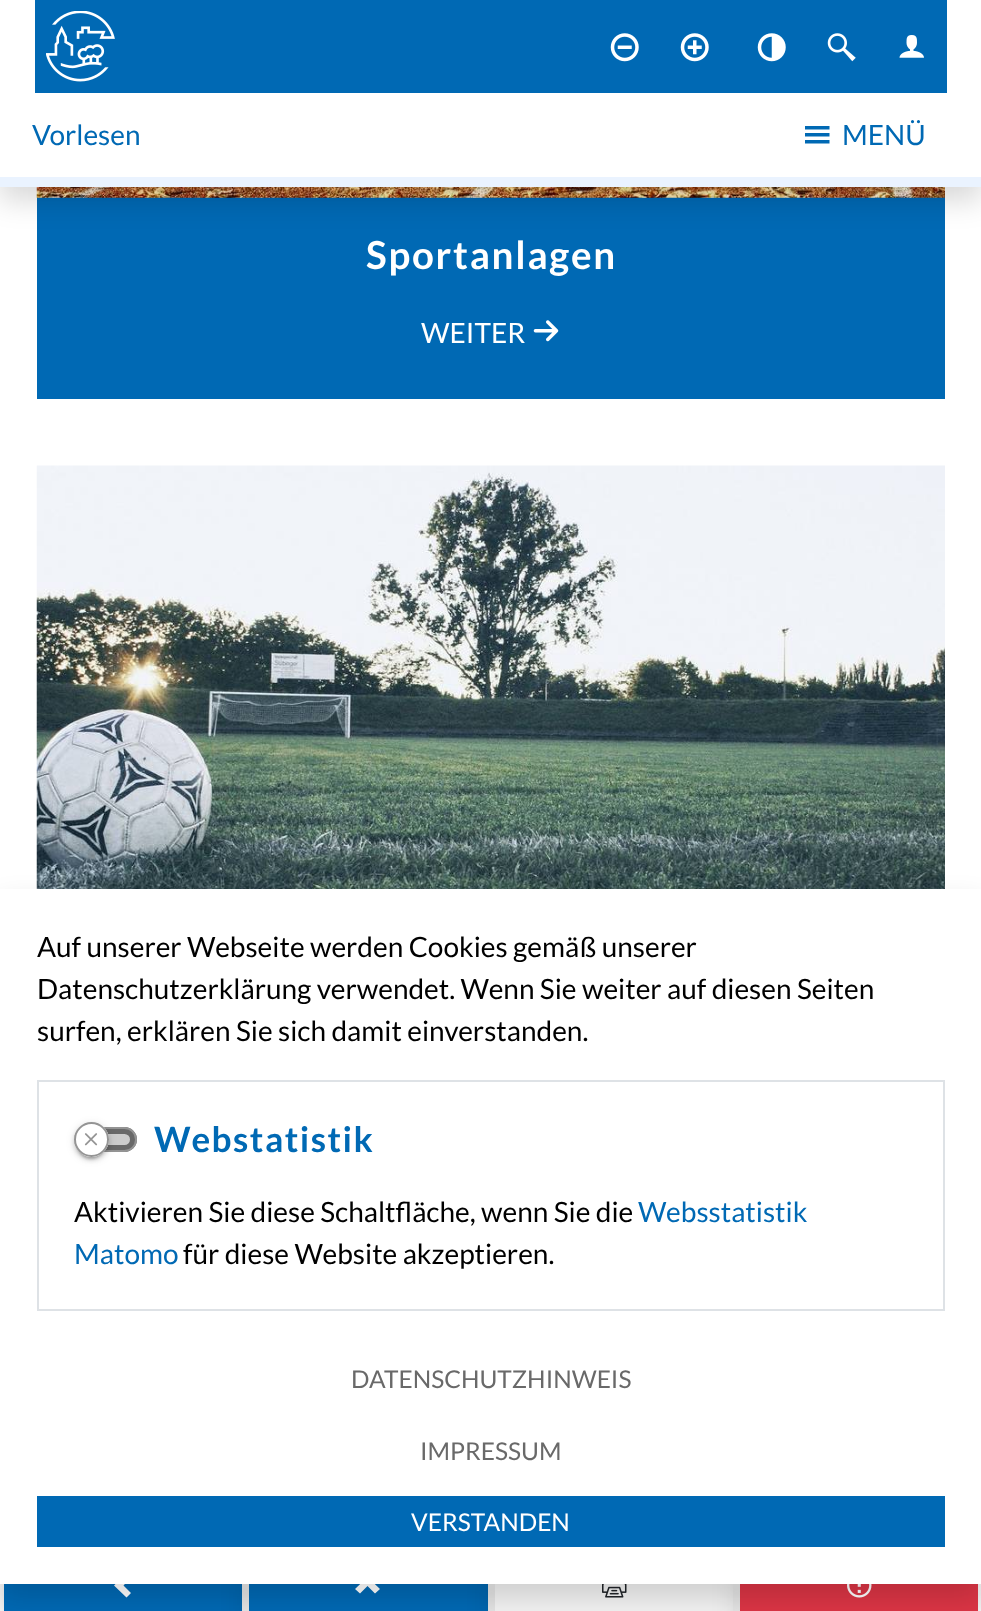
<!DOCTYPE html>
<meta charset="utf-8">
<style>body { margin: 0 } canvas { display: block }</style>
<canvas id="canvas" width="981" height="1611"></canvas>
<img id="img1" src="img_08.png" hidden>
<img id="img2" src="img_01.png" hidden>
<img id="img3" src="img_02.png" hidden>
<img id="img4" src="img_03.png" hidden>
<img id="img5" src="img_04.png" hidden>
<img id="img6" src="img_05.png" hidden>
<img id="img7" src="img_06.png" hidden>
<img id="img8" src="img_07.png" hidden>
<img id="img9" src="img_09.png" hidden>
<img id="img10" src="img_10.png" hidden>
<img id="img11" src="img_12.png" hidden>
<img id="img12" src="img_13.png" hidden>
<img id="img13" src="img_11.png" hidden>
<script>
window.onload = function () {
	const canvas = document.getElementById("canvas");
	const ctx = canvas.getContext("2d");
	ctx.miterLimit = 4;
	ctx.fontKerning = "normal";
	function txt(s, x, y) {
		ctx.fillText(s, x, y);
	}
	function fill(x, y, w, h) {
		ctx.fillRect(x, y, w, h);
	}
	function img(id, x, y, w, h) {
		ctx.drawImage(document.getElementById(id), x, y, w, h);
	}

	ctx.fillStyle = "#FFFFFF";
	fill(0, 0, 981, 1611);
	ctx.fillStyle = "#0069B4";
	fill(37, 197, 908, 202);
	img("img1", 36, 187, 909, 11);
	ctx.fillStyle = "rgba(0, 0, 0, 0.15)";
	ctx.filter = "blur(14px)";
	ctx.beginPath();
	ctx.rect(0, 14, 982, 187);
	ctx.fill();
	ctx.filter = "none";
	ctx.fillStyle = "#FFFFFF";
	fill(0, 0, 981, 177);
	ctx.fillStyle = "#EAF3FF";
	fill(0, 177, 981, 10);
	ctx.fillStyle = "#0069B4";
	fill(35, 0, 912, 93);
	img("img2", 46, 11, 69, 71);
	img("img3", 610, 33, 29, 29);
	img("img4", 680, 33, 29, 29);
	img("img5", 757, 33, 29, 29);
	img("img6", 827, 33, 29, 29);
	img("img7", 899, 35, 25, 23);
	img("img8", 805, 126, 25, 18);
	img("img9", 533, 320, 26, 22);
	img("img10", 36, 465, 909, 424);
	ctx.fillStyle = "rgba(0, 0, 0, 0.15)";
	ctx.filter = "blur(14px)";
	ctx.beginPath();
	ctx.rect(4, 1575, 238, 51);
	ctx.fill();
	ctx.filter = "none";
	ctx.fillStyle = "#0069B4";
	fill(4, 1584, 238, 27);
	ctx.fillStyle = "#FFFFFF";
	ctx.beginPath();
	ctx.moveTo(126.5, 1597.5);
	ctx.lineTo(131, 1593);
	ctx.lineTo(123.5, 1585.5);
	ctx.lineTo(131, 1577.5);
	ctx.lineTo(126.5, 1573);
	ctx.lineTo(114, 1585.5);
	ctx.closePath();
	ctx.fill();
	ctx.fillStyle = "rgba(0, 0, 0, 0.15)";
	ctx.filter = "blur(14px)";
	ctx.beginPath();
	ctx.rect(249, 1575, 239, 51);
	ctx.fill();
	ctx.filter = "none";
	ctx.fillStyle = "#0069B4";
	fill(249, 1584, 239, 27);
	ctx.fillStyle = "#FFFFFF";
	ctx.beginPath();
	ctx.moveTo(355, 1589);
	ctx.lineTo(360, 1593.5);
	ctx.lineTo(367.5, 1586);
	ctx.lineTo(375, 1593.5);
	ctx.lineTo(380, 1589);
	ctx.lineTo(367.5, 1577);
	ctx.closePath();
	ctx.fill();
	ctx.fillStyle = "rgba(0, 0, 0, 0.15)";
	ctx.filter = "blur(14px)";
	ctx.beginPath();
	ctx.rect(495, 1575, 238, 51);
	ctx.fill();
	ctx.filter = "none";
	ctx.fillStyle = "#F3F3F3";
	fill(495, 1584, 238, 27);
	img("img11", 602, 1584, 25, 14);
	ctx.fillStyle = "rgba(0, 0, 0, 0.15)";
	ctx.filter = "blur(14px)";
	ctx.beginPath();
	ctx.rect(740, 1575, 238, 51);
	ctx.fill();
	ctx.filter = "none";
	ctx.fillStyle = "#DC3545";
	fill(740, 1584, 238, 27);
	img("img12", 847, 1584, 25, 14);
	ctx.fillStyle = "rgba(0, 0, 0, 0.15)";
	ctx.filter = "blur(14px)";
	ctx.beginPath();
	ctx.rect(0, 903, 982, 695);
	ctx.fill();
	ctx.filter = "none";
	ctx.fillStyle = "#FFFFFF";
	fill(0, 889, 981, 695);
	ctx.strokeStyle = "#DEE2E6";
	ctx.lineWidth = 2;
	ctx.strokeRect(38, 1081, 906, 229);
	ctx.fillStyle = "#CCCCCC";
	ctx.beginPath();
	ctx.roundRect(77.5, 1130.5, 56, 18, 9);
	ctx.fill();
	ctx.strokeStyle = "#696969";
	ctx.lineWidth = 7;
	ctx.stroke();
	ctx.beginPath();
	ctx.roundRect(75, 1128, 61, 23, 11.5);
	ctx.strokeStyle = "#949494";
	ctx.lineWidth = 2;
	ctx.stroke();
	ctx.fillStyle = "rgba(0, 0, 0, 0.12)";
	ctx.filter = "blur(4.5px)";
	ctx.beginPath();
	ctx.roundRect(74, 1124, 35, 35, 17.5);
	ctx.fill();
	ctx.filter = "none";
	ctx.fillStyle = "rgba(0, 0, 0, 0.14)";
	ctx.filter = "blur(2px)";
	ctx.beginPath();
	ctx.roundRect(74, 1125, 35, 35, 17.5);
	ctx.fill();
	ctx.filter = "none";
	ctx.fillStyle = "rgba(0, 0, 0, 0.2)";
	ctx.filter = "blur(1px)";
	ctx.beginPath();
	ctx.roundRect(77, 1131, 28, 28, 14);
	ctx.fill();
	ctx.filter = "none";
	ctx.fillStyle = "#FFFFFF";
	ctx.beginPath();
	ctx.arc(91.5, 1139.5, 17.5, 0, Math.PI * 2);
	ctx.fill();
	img("img13", 84, 1133, 14, 13);
	ctx.beginPath();
	ctx.arc(91.5, 1139.5, 16.5, 0, Math.PI * 2);
	ctx.stroke();
	ctx.fillStyle = "#0069B4";
	fill(37, 1496, 908, 51);
	ctx.font = "28px Lato";
	txt("Vorlesen", 32, 145);
	txt("MENÜ", 842, 145);
	ctx.letterSpacing = "1.75px";
	ctx.font = "bold 38.5px Lato";
	ctx.fillStyle = "#FFFFFF";
	txt("Sportanlagen", 366, 269);
	ctx.letterSpacing = "0px";
	ctx.font = "28px Lato";
	txt("WEITER", 421, 343);
	ctx.fillStyle = "#000000";
	txt("Auf unserer Webseite werden Cookies gemäß unserer", 37, 957);
	txt("Datenschutzerklärung verwendet. Wenn Sie weiter auf diesen Seiten", 37, 999);
	txt("surfen, erklären Sie sich damit einverstanden.", 37, 1041);
	ctx.letterSpacing = "1.5px";
	ctx.font = "bold 35px Lato";
	ctx.fillStyle = "#0069B4";
	txt("Webstatistik", 154, 1152);
	ctx.letterSpacing = "0px";
	ctx.font = "28px Lato";
	ctx.fillStyle = "#000000";
	txt("Aktivieren Sie diese Schaltfläche, wenn Sie die", 74, 1222);
	ctx.fillStyle = "#0069B4";
	txt("Websstatistik", 638, 1222);
	txt("Matomo", 74, 1264);
	ctx.fillStyle = "#000000";
	txt("für diese Website akzeptieren.", 183, 1264);
	ctx.font = "24.5px Lato";
	ctx.fillStyle = "#696969";
	txt("DATENSCHUTZHINWEIS", 351, 1388);
	txt("IMPRESSUM", 420, 1460);
	ctx.fillStyle = "#FFFFFF";
	txt("VERSTANDEN", 411, 1531);
};
</script>
